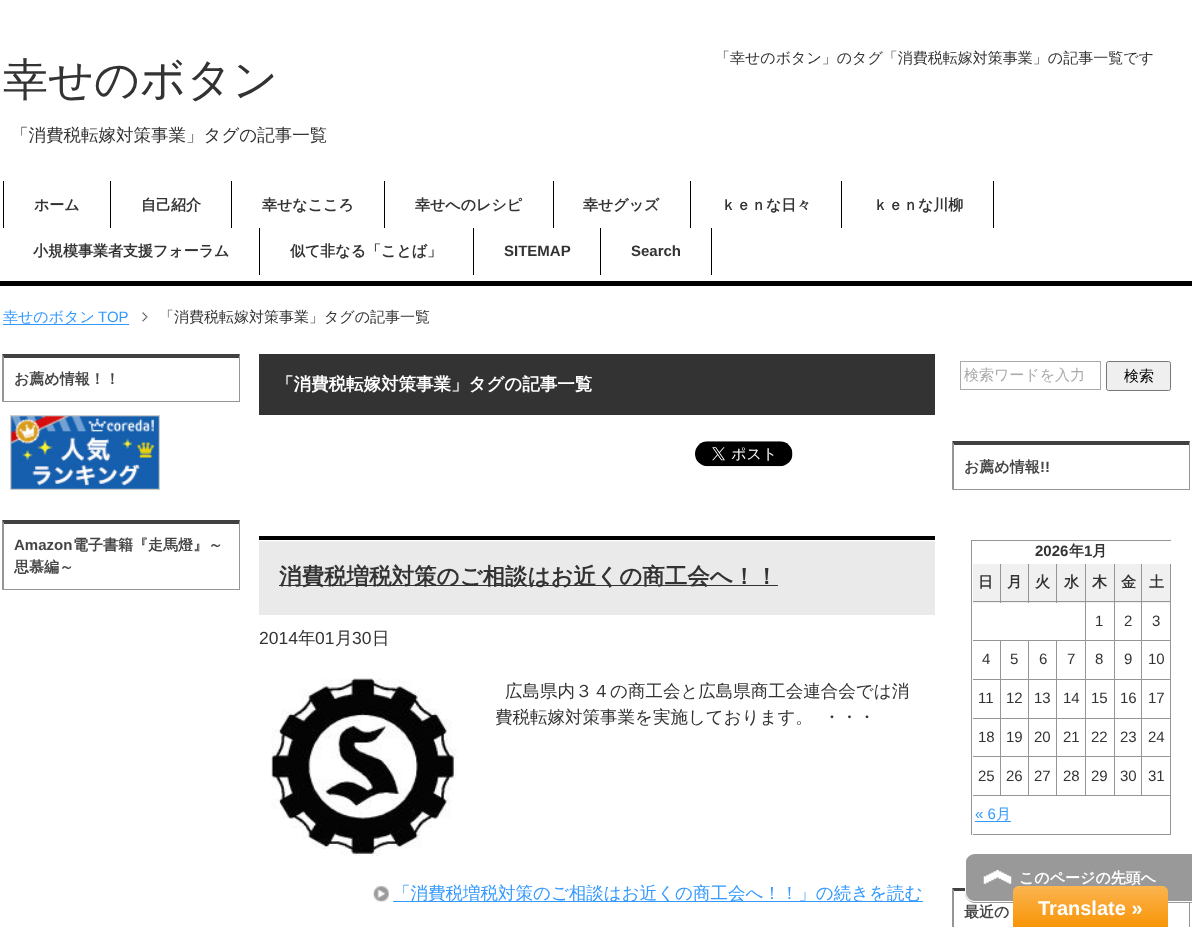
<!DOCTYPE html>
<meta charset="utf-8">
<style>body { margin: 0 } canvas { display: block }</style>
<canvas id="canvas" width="1192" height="927"></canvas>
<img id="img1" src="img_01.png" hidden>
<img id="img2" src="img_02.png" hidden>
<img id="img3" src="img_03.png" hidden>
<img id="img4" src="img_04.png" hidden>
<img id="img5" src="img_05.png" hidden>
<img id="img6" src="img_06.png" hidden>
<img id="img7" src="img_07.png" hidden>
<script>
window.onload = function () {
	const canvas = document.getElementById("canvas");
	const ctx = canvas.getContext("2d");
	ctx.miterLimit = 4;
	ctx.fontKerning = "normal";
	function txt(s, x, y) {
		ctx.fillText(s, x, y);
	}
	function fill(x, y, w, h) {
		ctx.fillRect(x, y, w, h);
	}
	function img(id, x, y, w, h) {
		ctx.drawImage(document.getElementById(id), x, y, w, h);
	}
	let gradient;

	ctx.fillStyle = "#FFFFFF";
	fill(0, 0, 1192, 927);
	ctx.fillStyle = "#000000";
	fill(0, 281, 1192, 5);
	fill(110, 181, 1, 47);
	fill(3, 181, 1, 47);
	fill(231, 181, 1, 47);
	fill(384, 181, 1, 47);
	fill(553, 181, 1, 47);
	fill(690, 181, 1, 47);
	fill(841, 181, 1, 47);
	fill(993, 181, 1, 47);
	fill(259, 228, 1, 47);
	fill(473, 228, 1, 47);
	fill(600, 228, 1, 47);
	fill(711, 228, 1, 47);
	ctx.fillStyle = "#3399FF";
	fill(3, 324, 126, 1);
	img("img1", 142, 312, 6, 10);
	ctx.fillStyle = "#414141";
	ctx.beginPath();
	ctx.moveTo(2, 354);
	ctx.lineTo(240, 354);
	ctx.lineTo(239, 358);
	ctx.lineTo(4, 358);
	ctx.closePath();
	ctx.fill();
	ctx.fillStyle = "#959595";
	ctx.beginPath();
	ctx.moveTo(240, 354);
	ctx.lineTo(240, 402);
	ctx.lineTo(239, 401);
	ctx.lineTo(239, 358);
	ctx.closePath();
	ctx.fill();
	fill(3, 401, 237, 1);
	ctx.beginPath();
	ctx.moveTo(2, 402);
	ctx.lineTo(2, 354);
	ctx.lineTo(4, 358);
	ctx.lineTo(4, 401);
	ctx.closePath();
	ctx.fill();
	img("img2", 10, 415, 150, 75);
	ctx.fillStyle = "#414141";
	ctx.beginPath();
	ctx.moveTo(2, 520);
	ctx.lineTo(240, 520);
	ctx.lineTo(239, 524);
	ctx.lineTo(4, 524);
	ctx.closePath();
	ctx.fill();
	ctx.fillStyle = "#959595";
	ctx.beginPath();
	ctx.moveTo(240, 520);
	ctx.lineTo(240, 590);
	ctx.lineTo(239, 589);
	ctx.lineTo(239, 524);
	ctx.closePath();
	ctx.fill();
	fill(3, 589, 237, 1);
	ctx.beginPath();
	ctx.moveTo(2, 590);
	ctx.lineTo(2, 520);
	ctx.lineTo(4, 524);
	ctx.lineTo(4, 589);
	ctx.closePath();
	ctx.fill();
	ctx.fillStyle = "#333333";
	fill(259, 354, 676, 61);
	img("img3", 695, 441, 98, 26);
	ctx.fillStyle = "#EAEAEA";
	fill(259, 541, 676, 74);
	img("img4", 259, 540, 676, 2);
	ctx.fillStyle = "#000000";
	fill(259, 536, 676, 4);
	ctx.fillStyle = "#333333";
	fill(279, 585, 499, 1);
	img("img5", 271, 678, 187, 179);
	img("img6", 373, 886, 16, 16);
	ctx.fillStyle = "#3399FF";
	fill(393, 901, 530, 1);
	ctx.strokeStyle = "#AAAAAA";
	ctx.strokeRect(960.5, 361.5, 140, 28);
	ctx.fillStyle = "#EFEFEF";
	ctx.beginPath();
	ctx.roundRect(1106.5, 361.5, 64, 29, 2);
	ctx.fill();
	ctx.strokeStyle = "#767676";
	ctx.stroke();
	ctx.fillStyle = "#414141";
	ctx.beginPath();
	ctx.moveTo(952, 441);
	ctx.lineTo(1190, 441);
	ctx.lineTo(1189, 445);
	ctx.lineTo(954, 445);
	ctx.closePath();
	ctx.fill();
	ctx.fillStyle = "#959595";
	ctx.beginPath();
	ctx.moveTo(1190, 441);
	ctx.lineTo(1190, 490);
	ctx.lineTo(1189, 489);
	ctx.lineTo(1189, 445);
	ctx.closePath();
	ctx.fill();
	fill(953, 489, 237, 1);
	ctx.beginPath();
	ctx.moveTo(952, 490);
	ctx.lineTo(952, 441);
	ctx.lineTo(954, 445);
	ctx.lineTo(954, 489);
	ctx.closePath();
	ctx.fill();
	fill(971, 540, 200, 1);
	fill(971, 540, 1, 295);
	ctx.fillStyle = "#F0F0F0";
	fill(973, 564, 27, 39);
	ctx.fillStyle = "#959595";
	fill(1000, 564, 1, 39);
	fill(973, 601, 28, 1);
	ctx.fillStyle = "#F0F0F0";
	fill(1001, 564, 27, 39);
	ctx.fillStyle = "#959595";
	fill(1028, 564, 1, 39);
	fill(1001, 601, 28, 1);
	ctx.fillStyle = "#F0F0F0";
	fill(1029, 564, 56, 39);
	ctx.fillStyle = "#959595";
	fill(1056, 564, 1, 39);
	fill(1029, 601, 29, 1);
	fill(1085, 564, 1, 232);
	fill(1058, 601, 28, 1);
	ctx.fillStyle = "#F0F0F0";
	fill(1086, 564, 28, 39);
	ctx.fillStyle = "#959595";
	fill(1114, 564, 1, 232);
	fill(1086, 601, 29, 1);
	ctx.fillStyle = "#F0F0F0";
	fill(1115, 564, 55, 39);
	ctx.fillStyle = "#959595";
	fill(1141, 564, 1, 232);
	fill(1115, 601, 28, 1);
	fill(1170, 564, 1, 194);
	fill(1143, 601, 28, 1);
	fill(973, 640, 198, 1);
	fill(1000, 641, 1, 155);
	fill(973, 679, 28, 1);
	fill(1028, 641, 1, 155);
	fill(1001, 679, 28, 1);
	fill(1056, 641, 1, 155);
	fill(1029, 679, 142, 1);
	fill(973, 718, 198, 1);
	fill(973, 756, 198, 1);
	fill(1170, 758, 1, 77);
	fill(973, 795, 198, 1);
	fill(973, 834, 113, 1);
	ctx.fillStyle = "#3399FF";
	fill(975, 821, 36, 1);
	ctx.fillStyle = "#959595";
	fill(1086, 834, 85, 1);
	ctx.fillStyle = "#414141";
	ctx.beginPath();
	ctx.moveTo(952, 888);
	ctx.lineTo(1190, 888);
	ctx.lineTo(1189, 891);
	ctx.lineTo(954, 891);
	ctx.closePath();
	ctx.fill();
	ctx.fillStyle = "#959595";
	ctx.beginPath();
	ctx.moveTo(1190, 888);
	ctx.lineTo(1190, 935);
	ctx.lineTo(1189, 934);
	ctx.lineTo(1189, 891);
	ctx.closePath();
	ctx.fill();
	ctx.beginPath();
	ctx.moveTo(952, 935);
	ctx.lineTo(952, 888);
	ctx.lineTo(954, 891);
	ctx.lineTo(954, 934);
	ctx.closePath();
	ctx.fill();
	ctx.fillStyle = "#999999";
	ctx.beginPath();
	ctx.moveTo(975, 853);
	ctx.lineTo(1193, 853);
	ctx.lineTo(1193, 903);
	ctx.lineTo(975, 903);
	ctx.bezierCurveTo(969.5, 903, 965, 898.5, 965, 893);
	ctx.lineTo(965, 863);
	ctx.bezierCurveTo(965, 857.5, 969.5, 853, 975, 853);
	ctx.closePath();
	ctx.fill();
	img("img7", 983, 870, 29, 14);
	ctx.fillStyle = "#FFFFFF";
	ctx.beginPath();
	ctx.moveTo(975, 852);
	ctx.lineTo(1192, 852);
	ctx.lineTo(1192, 902);
	ctx.lineTo(975, 902);
	ctx.bezierCurveTo(969, 902, 965, 898, 965, 892);
	ctx.lineTo(965, 862);
	ctx.bezierCurveTo(965, 857, 969, 852, 975, 852);
	ctx.closePath();
	ctx.moveTo(975, 854);
	ctx.lineTo(1192, 854);
	ctx.lineTo(1192, 901);
	ctx.lineTo(975, 901);
	ctx.bezierCurveTo(970, 901, 966, 897, 966, 892);
	ctx.lineTo(966, 862);
	ctx.bezierCurveTo(966, 858, 970, 854, 975, 854);
	ctx.closePath();
	ctx.fill("evenodd");
	gradient = ctx.createLinearGradient(1090, 886, 1090, 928);
	gradient.addColorStop(0, "#FBB450");
	gradient.addColorStop(1, "#F89406");
	ctx.fillStyle = gradient;
	ctx.beginPath();
	ctx.moveTo(1019, 886);
	ctx.lineTo(1162, 886);
	ctx.bezierCurveTo(1165.5, 886, 1168, 888.5, 1168, 892);
	ctx.lineTo(1168, 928);
	ctx.lineTo(1013, 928);
	ctx.lineTo(1013, 892);
	ctx.bezierCurveTo(1013, 888.5, 1015.5, 886, 1019, 886);
	ctx.closePath();
	ctx.fill();
	ctx.font = "500 45px WenQuanYi Zen Hei";
	ctx.fillStyle = "#333333";
	txt("幸せのボタン", 3, 95);
	ctx.font = "500 17.5px WenQuanYi Zen Hei";
	txt("「消費税転嫁対策事業」タグの記事一覧", 11, 141);
	ctx.font = "500 15px WenQuanYi Zen Hei";
	txt("「幸せのボタン」のタグ「消費税転嫁対策事業」の記事一覧です", 715, 63);
	ctx.font = "bold 15px WenQuanYi Zen Hei";
	txt("ホーム", 34, 210);
	txt("自己紹介", 141, 210);
	txt("幸せなこころ", 262, 210);
	txt("幸せへのレシピ", 415, 210);
	txt("幸せグッズ", 583, 210);
	txt("ｋｅｎな日々", 721, 210);
	txt("ｋｅｎな川柳", 873, 210);
	txt("小規模事業者支援フォーラム", 33, 256);
	txt("似て非なる「ことば」", 290, 256);
	ctx.font = "bold 15px Liberation Sans";
	txt("SITEMAP", 504, 256);
	txt("Search", 631, 256);
	ctx.font = "500 15px WenQuanYi Zen Hei";
	ctx.fillStyle = "#3399FF";
	txt("幸せのボタン", 3, 322);
	ctx.font = "15px Liberation Sans";
	txt("TOP", 98, 322);
	ctx.font = "500 15px WenQuanYi Zen Hei";
	ctx.fillStyle = "#333333";
	txt("「消費税転嫁対策事業」タグの記事一覧", 159, 322);
	ctx.font = "bold 15px WenQuanYi Zen Hei";
	ctx.fillStyle = "#454545";
	txt("お薦め情報！！", 14, 384);
	ctx.font = "bold 15px Liberation Sans";
	txt("Amazon", 14, 550);
	ctx.font = "bold 15px WenQuanYi Zen Hei";
	txt("電子書籍『走馬燈』～", 73, 550);
	txt("思慕編～", 14, 572);
	ctx.font = "bold 17.5px WenQuanYi Zen Hei";
	ctx.fillStyle = "#FFFFFF";
	txt("「消費税転嫁対策事業」タグの記事一覧", 276, 390);
	ctx.font = "bold 22.5px WenQuanYi Zen Hei";
	ctx.fillStyle = "#333333";
	txt("消費税増税対策のご相談はお近くの商工会へ！！", 279, 584);
	ctx.font = "17.5px Liberation Sans";
	txt("2014", 259, 644);
	ctx.font = "500 17.5px WenQuanYi Zen Hei";
	txt("年", 298, 644);
	ctx.font = "17.5px Liberation Sans";
	txt("01", 315, 644);
	ctx.font = "500 17.5px WenQuanYi Zen Hei";
	txt("月", 335, 644);
	ctx.font = "17.5px Liberation Sans";
	txt("30", 352, 644);
	ctx.font = "500 17.5px WenQuanYi Zen Hei";
	txt("日", 372, 644);
	txt("広島県内３４の商工会と広島県商工会連合会では消", 505, 697);
	txt("費税転嫁対策事業を実施しております。", 495, 723);
	txt("・・・", 823, 723);
	ctx.fillStyle = "#3399FF";
	txt("「消費税増税対策のご相談はお近くの商工会へ！！」の続きを読む", 393, 899);
	ctx.font = "500 15px WenQuanYi Zen Hei";
	ctx.fillStyle = "#AAAAAA";
	txt("検索ワードを入力", 964, 380);
	ctx.fillStyle = "#000000";
	txt("検索", 1124, 381);
	ctx.font = "bold 15px WenQuanYi Zen Hei";
	ctx.fillStyle = "#454545";
	txt("お薦め情報", 964, 472);
	ctx.font = "bold 15px Liberation Sans";
	txt("!!", 1040, 472);
	ctx.fillStyle = "#333333";
	txt("2026", 1035, 556);
	ctx.font = "bold 15px WenQuanYi Zen Hei";
	txt("年", 1069, 556);
	ctx.font = "bold 15px Liberation Sans";
	txt("1", 1084, 556);
	ctx.font = "bold 15px WenQuanYi Zen Hei";
	txt("月", 1092, 556);
	txt("日", 978, 587);
	txt("月", 1007, 587);
	txt("火", 1035, 587);
	txt("水", 1064, 587);
	txt("木", 1092, 587);
	txt("金", 1121, 587);
	txt("土", 1149, 587);
	ctx.font = "15px Liberation Sans";
	txt("1", 1095, 626);
	txt("2", 1124, 626);
	txt("3", 1152, 626);
	txt("4", 982, 664);
	txt("5", 1010, 664);
	txt("6", 1039, 664);
	txt("7", 1067, 664);
	txt("8", 1095, 664);
	txt("9", 1124, 664);
	txt("10", 1148, 664);
	txt("11", 978, 703);
	txt("12", 1006, 703);
	txt("13", 1034, 703);
	txt("14", 1063, 703);
	txt("15", 1091, 703);
	txt("16", 1120, 703);
	txt("17", 1148, 703);
	txt("18", 978, 742);
	txt("19", 1006, 742);
	txt("20", 1034, 742);
	txt("21", 1063, 742);
	txt("22", 1091, 742);
	txt("23", 1120, 742);
	txt("24", 1148, 742);
	txt("25", 978, 781);
	txt("26", 1006, 781);
	txt("27", 1034, 781);
	txt("28", 1063, 781);
	txt("29", 1091, 781);
	txt("30", 1120, 781);
	txt("31", 1148, 781);
	ctx.fillStyle = "#3399FF";
	txt("« 6", 975, 819);
	ctx.font = "500 15px WenQuanYi Zen Hei";
	txt("月", 996, 819);
	ctx.font = "bold 15px WenQuanYi Zen Hei";
	ctx.fillStyle = "#454545";
	txt("最近の", 964, 917);
	ctx.fillStyle = "#FFFFFF";
	txt("このページの先頭へ", 1019, 883);
	ctx.font = "bold 20px Liberation Sans";
	txt("Translate »", 1038, 915);
};
</script>
